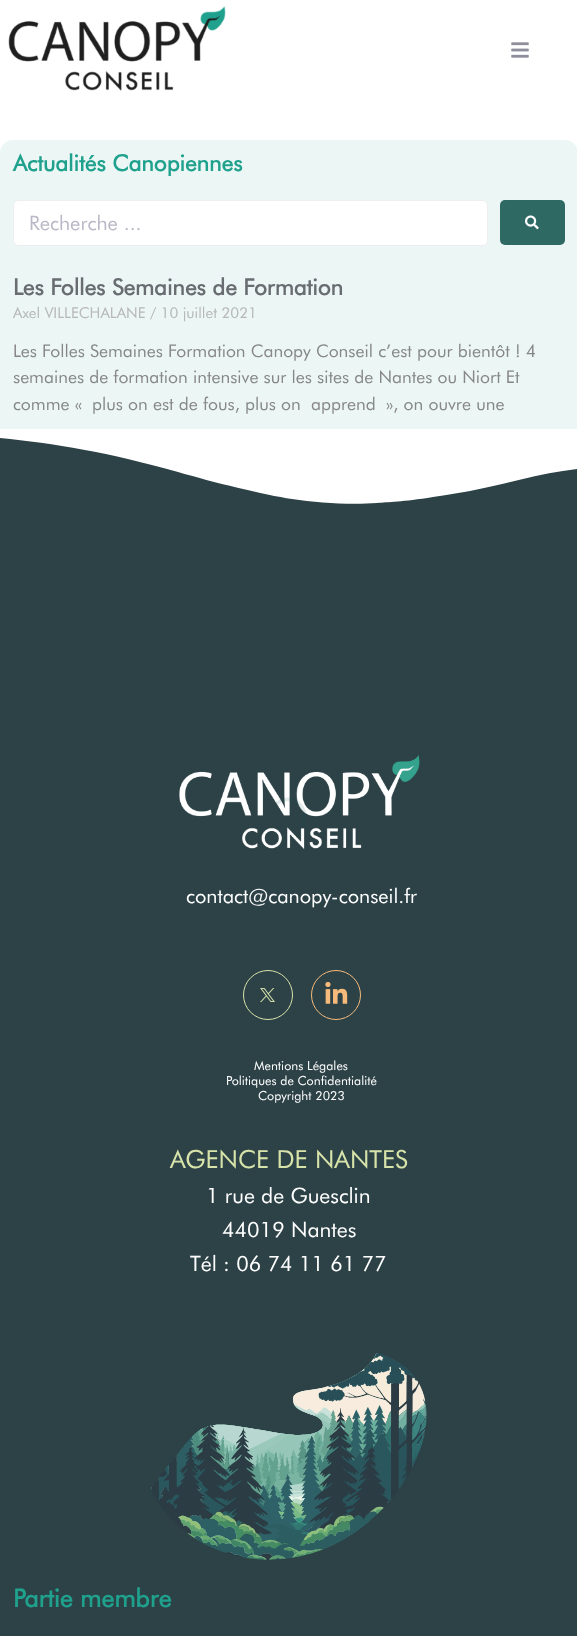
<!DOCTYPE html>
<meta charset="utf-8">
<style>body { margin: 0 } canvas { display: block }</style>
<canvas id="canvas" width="577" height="1636"></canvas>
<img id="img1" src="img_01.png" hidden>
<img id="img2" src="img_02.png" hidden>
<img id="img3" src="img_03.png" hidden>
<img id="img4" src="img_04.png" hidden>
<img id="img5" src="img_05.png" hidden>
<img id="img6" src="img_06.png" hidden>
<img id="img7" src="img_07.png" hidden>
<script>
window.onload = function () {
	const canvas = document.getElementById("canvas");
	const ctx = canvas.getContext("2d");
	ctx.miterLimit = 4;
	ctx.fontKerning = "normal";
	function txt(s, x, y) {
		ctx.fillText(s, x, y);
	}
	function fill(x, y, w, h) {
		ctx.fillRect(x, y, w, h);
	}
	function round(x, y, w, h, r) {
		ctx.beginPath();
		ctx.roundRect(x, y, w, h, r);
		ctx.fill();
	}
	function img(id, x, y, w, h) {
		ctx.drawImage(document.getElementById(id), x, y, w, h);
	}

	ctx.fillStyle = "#FFFFFF";
	fill(0, 0, 577, 1636);
	img("img1", 8, 6, 218, 85);
	img("img2", 511, 42, 18, 16);
	ctx.fillStyle = "#ECF7F5";
	round(0, 140, 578, 440, 13);
	ctx.fillStyle = "#FFFFFF";
	ctx.beginPath();
	ctx.roundRect(13.5, 200.5, 474, 45, 4.5);
	ctx.fill();
	ctx.strokeStyle = "#EDEEEF";
	ctx.stroke();
	ctx.fillStyle = "#2E6964";
	round(500, 200, 65, 45, 5);
	img("img3", 525, 215, 14, 15);
	ctx.fillStyle = "#2D4247";
	fill(0, 438, 577, 1198);
	ctx.fillStyle = "#FFFFFF";
	ctx.beginPath();
	ctx.moveTo(-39, 435);
	ctx.bezierCurveTo(28, 439, 93, 448, 178, 472);
	ctx.bezierCurveTo(212, 482, 265, 495, 292, 499);
	ctx.bezierCurveTo(318, 503, 351, 505, 377, 503);
	ctx.bezierCurveTo(388, 502, 402, 502, 433, 497);
	ctx.bezierCurveTo(464, 493, 499, 485, 523, 479);
	ctx.bezierCurveTo(569, 467, 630, 463, 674, 462);
	ctx.bezierCurveTo(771, 461, 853, 485, 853, 485);
	ctx.lineTo(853, 429);
	ctx.lineTo(-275, 429);
	ctx.lineTo(-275, 455);
	ctx.bezierCurveTo(-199, 436, -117, 430, -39, 435);
	ctx.closePath();
	ctx.fill();
	img("img4", 179, 755, 241, 94);
	ctx.beginPath();
	ctx.arc(268, 995, 24.5, 0, Math.PI * 2);
	ctx.strokeStyle = "#D8E3A9";
	ctx.stroke();
	img("img5", 260, 988, 15, 14);
	ctx.beginPath();
	ctx.arc(336, 995, 24.5, 0, Math.PI * 2);
	ctx.strokeStyle = "#F6BB7B";
	ctx.stroke();
	img("img6", 325, 981, 23, 23);
	img("img7", 150, 1353, 277, 207);
	ctx.beginPath();
	ctx.moveTo(275.5, 804.5);
	ctx.bezierCurveTo(287.5, 792.5, 307.5, 803.5, 304, 819.5);
	ctx.bezierCurveTo(303.5, 823, 302, 826, 299.5, 828);
	ctx.strokeStyle = "rgba(17, 85, 79, 0.12)";
	ctx.lineWidth = 3.8;
	ctx.stroke();
	ctx.font = "bold 22.5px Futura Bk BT";
	ctx.fillStyle = "#1FA18D";
	txt("Actualités Canopiennes", 13, 171);
	ctx.font = "20px Futura Bk BT";
	ctx.fillStyle = "#B9B8C6";
	txt("Recherche ...", 29, 230);
	ctx.font = "bold 22.5px Futura Bk BT";
	ctx.fillStyle = "#696D72";
	txt("Les Folles Semaines de Formation", 13, 295);
	ctx.font = "15px Futura Bk BT";
	ctx.fillStyle = "#B7B7B7";
	txt("Axel VILLECHALANE / 10 juillet 2021", 13, 318);
	ctx.font = "17.5px Futura Bk BT";
	ctx.fillStyle = "#878787";
	txt("Les Folles Semaines Formation Canopy Conseil c’est pour bientôt ! 4", 13, 357);
	txt("semaines de formation intensive sur les sites de Nantes ou Niort Et", 13, 383);
	txt("comme «", 13, 410);
	txt("plus on est de fous, plus on", 92, 410);
	txt("apprend", 311, 410);
	txt("», on ouvre une", 386, 410);
	ctx.font = "20px Futura Bk BT";
	ctx.fillStyle = "#FFFFFF";
	txt("contact@canopy-conseil.fr", 186, 903);
	ctx.font = "12.5px Futura Bk BT";
	txt("Mentions Légales", 254, 1070);
	txt("Politiques de Confidentialité", 226, 1085);
	txt("Copyright 2023", 258, 1100);
	ctx.font = "25px Futura Bk BT";
	ctx.fillStyle = "#D8E3A9";
	txt("AGENCE DE NANTES", 170, 1168);
	ctx.font = "21.25px Futura Bk BT";
	ctx.fillStyle = "#FFFFFF";
	txt("1 rue de Guesclin", 206, 1203);
	txt("44019 Nantes", 222, 1237);
	txt("Tél : 06 74 11 61 77", 190, 1271);
	ctx.font = "bold 25px Futura Bk BT";
	ctx.fillStyle = "#1FA18D";
	txt("Partie membre", 13, 1607);
};
</script>
